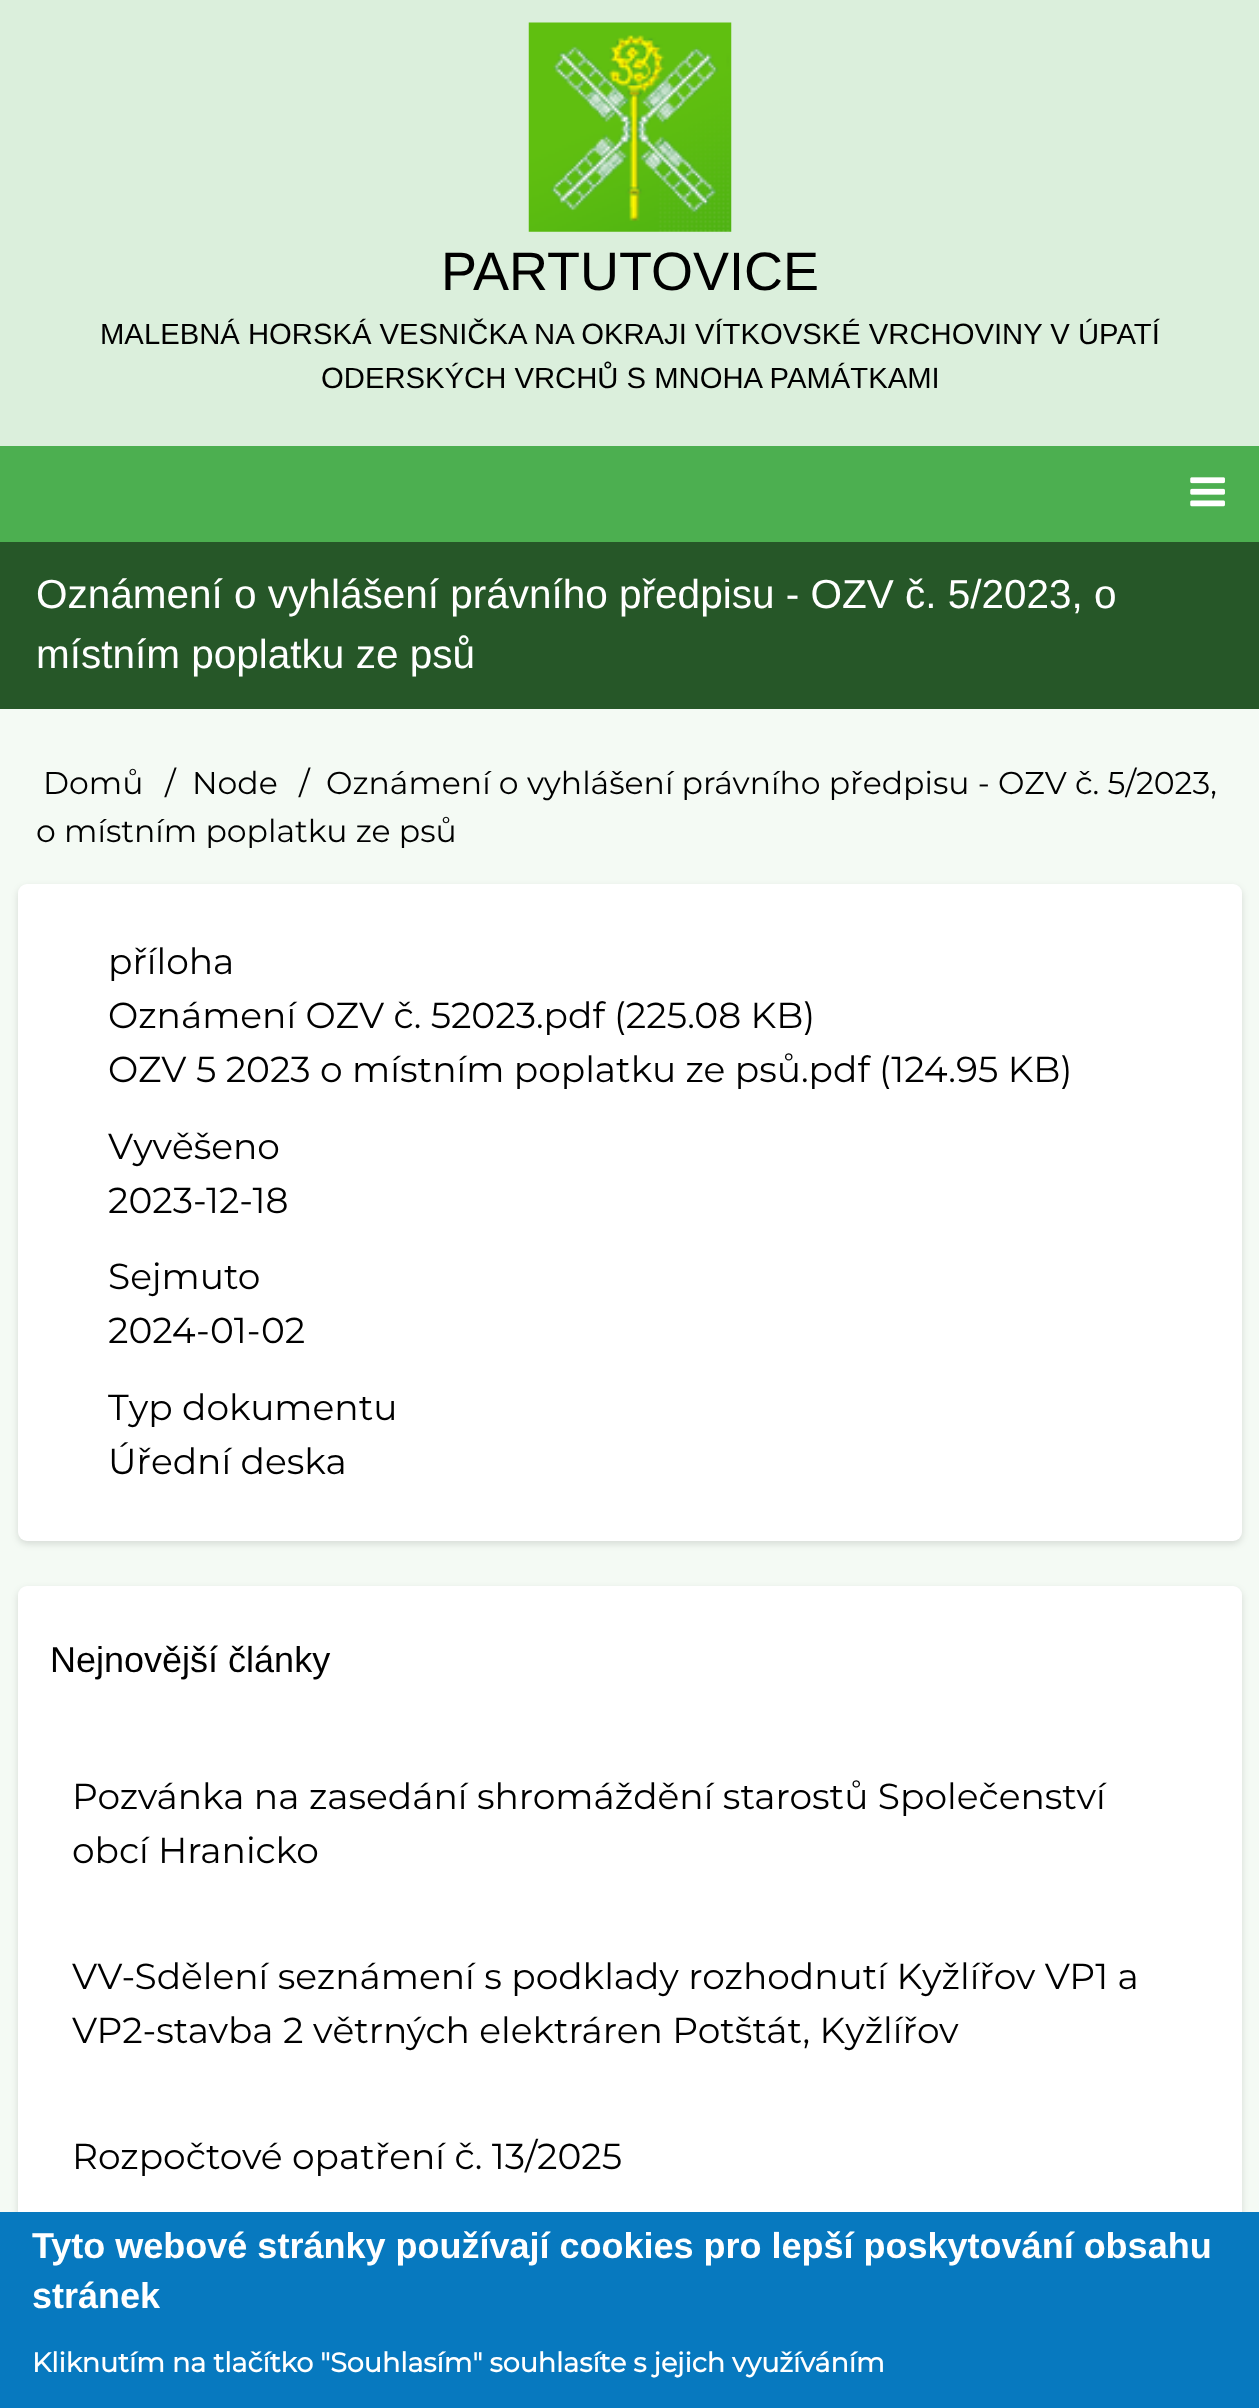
<!DOCTYPE html>
<meta charset="utf-8">
<style>body { margin: 0 } canvas { display: block }</style>
<canvas id="canvas" width="1259" height="2408"></canvas>
<img id="img1" src="img_01.png" hidden>
<img id="img2" src="img_02.png" hidden>
<script>
window.onload = function () {
	const canvas = document.getElementById("canvas");
	const ctx = canvas.getContext("2d");
	ctx.miterLimit = 4;
	ctx.fontKerning = "normal";
	function txt(s, x, y) {
		ctx.fillText(s, x, y);
	}
	function fill(x, y, w, h) {
		ctx.fillRect(x, y, w, h);
	}
	function round(x, y, w, h, r) {
		ctx.beginPath();
		ctx.roundRect(x, y, w, h, r);
		ctx.fill();
	}
	function img(id, x, y, w, h) {
		ctx.drawImage(document.getElementById(id), x, y, w, h);
	}

	ctx.fillStyle = "#DBEFDC";
	fill(0, 0, 1259, 2408);
	img("img1", 528, 22, 204, 210);
	ctx.fillStyle = "#4CAF50";
	fill(0, 446, 1259, 96);
	img("img2", 1190, 477, 35, 30);
	ctx.fillStyle = "#265728";
	fill(0, 542, 1259, 167);
	ctx.fillStyle = "#F4FAF4";
	fill(0, 709, 1259, 1503);
	ctx.fillStyle = "rgba(0, 0, 0, 0.12)";
	ctx.filter = "blur(3.5px)";
	ctx.beginPath();
	ctx.roundRect(18, 887, 1224, 657, 9);
	ctx.fill();
	ctx.filter = "none";
	ctx.fillStyle = "#FFFFFF";
	round(18, 884, 1224, 657, 9);
	ctx.fillStyle = "rgba(0, 0, 0, 0.12)";
	ctx.filter = "blur(3.5px)";
	ctx.beginPath();
	ctx.roundRect(18, 1589, 1224, 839, 9);
	ctx.fill();
	ctx.filter = "none";
	ctx.fillStyle = "#FFFFFF";
	round(18, 1586, 1224, 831, 9);
	ctx.fillStyle = "#0779BF";
	fill(0, 2212, 1259, 196);
	ctx.font = "54px Liberation Sans";
	ctx.fillStyle = "#000000";
	txt("PARTUTOVICE", 441, 290);
	ctx.font = "29.25px Liberation Sans";
	txt("MALEBNÁ HORSKÁ VESNIČKA NA OKRAJI VÍTKOVSKÉ VRCHOVINY V ÚPATÍ", 100, 344);
	txt("ODERSKÝCH VRCHŮ S MNOHA PAMÁTKAMI", 321, 388);
	ctx.font = "40.5px Liberation Sans";
	ctx.fillStyle = "#FFFFFF";
	txt("Oznámení o vyhlášení právního předpisu - OZV č. 5/2023, o", 36, 608);
	txt("místním poplatku ze psů", 36, 668);
	ctx.font = "100 31.5px Montserrat";
	ctx.fillStyle = "#000000";
	txt("Domů", 43, 794);
	txt("/", 165, 794);
	txt("Node", 192, 794);
	txt("/", 299, 794);
	txt("Oznámení o vyhlášení právního předpisu - OZV č. 5/2023,", 326, 794);
	txt("o místním poplatku ze psů", 36, 842);
	ctx.font = "100 36px Montserrat";
	txt("příloha", 108, 974);
	txt("Oznámení OZV č. 52023.pdf (225.08 KB)", 108, 1028);
	txt("OZV 5 2023 o místním poplatku ze psů.pdf (124.95 KB)", 108, 1082);
	txt("Vyvěšeno", 108, 1159);
	txt("2023-12-18", 108, 1213);
	txt("Sejmuto", 108, 1289);
	txt("2024-01-02", 108, 1343);
	txt("Typ dokumentu", 108, 1420);
	txt("Úřední deska", 108, 1474);
	ctx.font = "36px Liberation Sans";
	txt("Nejnovější články", 50, 1672);
	ctx.font = "100 36px Montserrat";
	txt("Pozvánka na zasedání shromáždění starostů Společenství", 72, 1809);
	txt("obcí Hranicko", 72, 1863);
	txt("VV-Sdělení seznámení s podklady rozhodnutí Kyžlířov VP1 a", 72, 1989);
	txt("VP2-stavba 2 větrných elektráren Potštát, Kyžlířov", 72, 2043);
	txt("Rozpočtové opatření č. 13/2025", 72, 2169);
	ctx.font = "bold 36px Liberation Sans";
	ctx.fillStyle = "#FFFFFF";
	txt("Tyto webové stránky používají cookies pro lepší poskytování obsahu", 32, 2258);
	txt("stránek", 32, 2308);
	ctx.font = "bold 27px Montserrat";
	txt("Kliknutím na tlačítko \"Souhlasím\" souhlasíte s jejich využíváním", 32, 2372);
};
</script>
